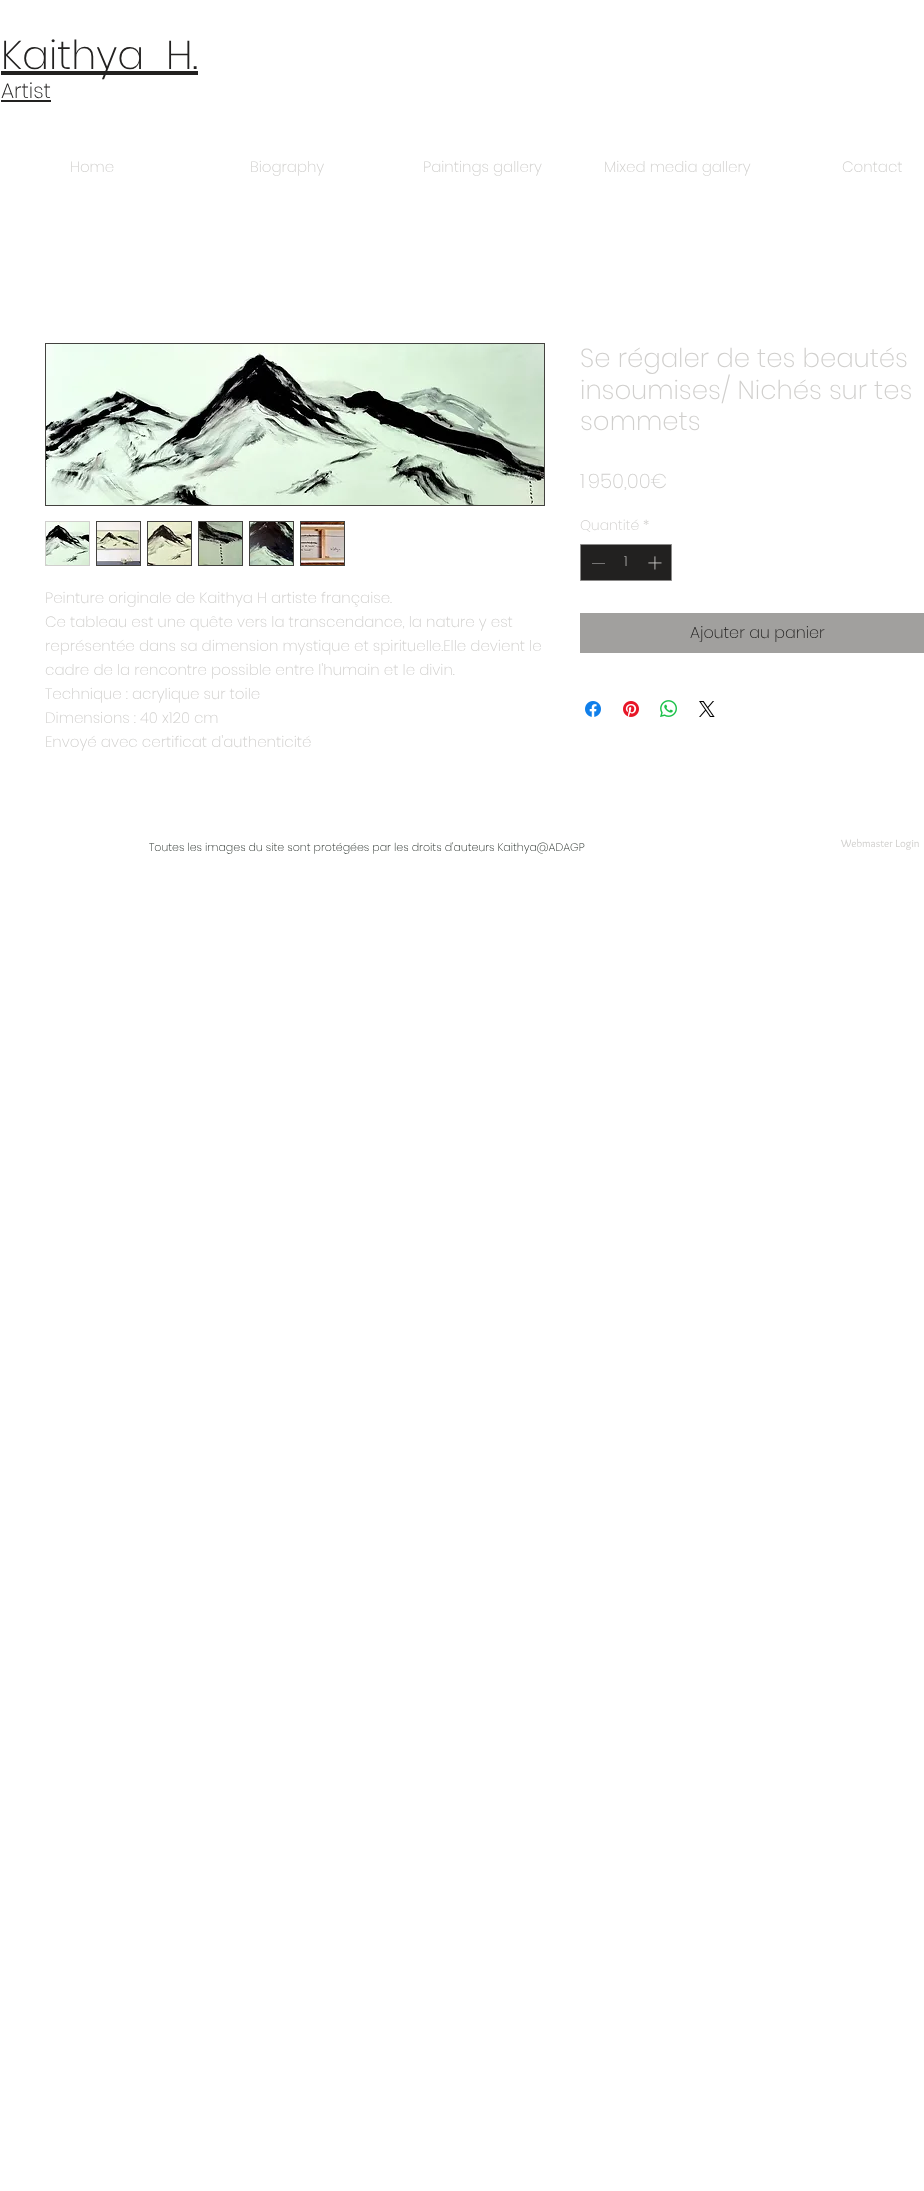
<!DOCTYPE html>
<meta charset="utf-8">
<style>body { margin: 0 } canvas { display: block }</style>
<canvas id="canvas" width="924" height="2191"></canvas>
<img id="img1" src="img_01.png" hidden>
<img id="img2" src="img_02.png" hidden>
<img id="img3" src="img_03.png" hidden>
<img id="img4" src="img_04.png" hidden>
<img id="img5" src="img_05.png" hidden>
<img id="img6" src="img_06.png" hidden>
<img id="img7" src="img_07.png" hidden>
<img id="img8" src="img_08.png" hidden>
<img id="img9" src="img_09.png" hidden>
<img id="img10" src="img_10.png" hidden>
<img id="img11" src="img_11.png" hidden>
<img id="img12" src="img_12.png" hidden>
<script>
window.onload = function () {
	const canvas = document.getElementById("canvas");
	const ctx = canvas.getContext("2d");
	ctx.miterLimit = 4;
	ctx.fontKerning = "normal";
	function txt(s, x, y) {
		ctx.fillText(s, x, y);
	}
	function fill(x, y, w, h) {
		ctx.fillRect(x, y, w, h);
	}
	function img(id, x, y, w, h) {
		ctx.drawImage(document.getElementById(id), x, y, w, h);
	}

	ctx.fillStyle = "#FFFFFF";
	fill(0, 0, 924, 2191);
	ctx.fillStyle = "#222120";
	fill(1, 71, 197, 4);
	fill(1, 100, 50, 2);
	ctx.beginPath();
	ctx.rect(580.5, 544.5, 91, 36);
	ctx.fill();
	ctx.strokeStyle = "#8A8988";
	ctx.stroke();
	ctx.fillStyle = "#757474";
	fill(592, 563, 13, 1);
	img("img1", 648, 556, 14, 14);
	ctx.fillStyle = "#A1A09E";
	fill(580, 613, 344, 40);
	img("img2", 585, 701, 16, 16);
	img("img3", 623, 701, 16, 16);
	img("img4", 660, 700, 17, 17);
	img("img5", 699, 701, 16, 16);
	ctx.strokeStyle = "#43423F";
	ctx.strokeRect(45.5, 343.5, 499, 162);
	img("img6", 46, 344, 498, 161);
	ctx.strokeStyle = "#D0CFCD";
	ctx.strokeRect(45.5, 521.5, 44, 44);
	img("img7", 46, 522, 43, 43);
	ctx.fillStyle = "#43423F";
	fill(96, 521, 45, 45);
	img("img8", 97, 522, 43, 43);
	fill(147, 521, 45, 45);
	img("img9", 148, 522, 43, 43);
	fill(198, 521, 45, 45);
	img("img10", 199, 522, 43, 43);
	fill(249, 521, 45, 45);
	img("img11", 250, 522, 43, 43);
	fill(300, 521, 45, 45);
	img("img12", 301, 522, 43, 43);
	ctx.font = "200 40px Poppins";
	ctx.fillStyle = "#222120";
	txt("Kaithya  H.", 1, 69);
	ctx.font = "200 21px Poppins";
	txt("Artist", 1, 98);
	ctx.font = "200 15px Poppins";
	ctx.fillStyle = "#D0CFCD";
	txt("Home", 70, 172);
	txt("Biography", 250, 172);
	txt("Paintings gallery", 423, 172);
	txt("Mixed media gallery", 604, 172);
	txt("Contact", 842, 172);
	ctx.font = "200 26px Poppins";
	txt("Se régaler de tes beautés", 580, 367);
	txt("insoumises/ Nichés sur tes", 580, 399);
	txt("sommets", 580, 430);
	ctx.font = "200 20px Poppins";
	txt("1 950,00€", 580, 488);
	ctx.font = "200 14px Poppins";
	txt("Quantité *", 580, 530);
	txt("1", 624, 566);
	ctx.font = "200 16px Poppins";
	ctx.fillStyle = "#222120";
	txt("Ajouter au panier", 690, 638);
	ctx.font = "200 15px Poppins";
	ctx.fillStyle = "#D0CFCD";
	txt("Peinture originale de Kaithya H artiste française.", 45, 603);
	txt("Ce tableau est une quête vers la transcendance, la nature y est", 45, 627);
	txt("représentée dans sa dimension mystique et spirituelle.Elle devient le", 45, 651);
	txt("cadre de la rencontre possible entre l'humain et le divin.", 45, 675);
	txt("Technique : acrylique sur toile", 45, 699);
	txt("Dimensions : 40 x120 cm", 45, 723);
	txt("Envoyé avec certificat d'authenticité", 45, 747);
	ctx.font = "200 11px Poppins";
	ctx.fillStyle = "#252D28";
	txt("Toutes les images du site sont protégées par les droits d'auteurs Kaithya@ADAGP", 149, 851);
	ctx.font = "11px Overlock";
	ctx.fillStyle = "#D0CFCD";
	txt("Webmaster Login", 841, 847);
};
</script>
